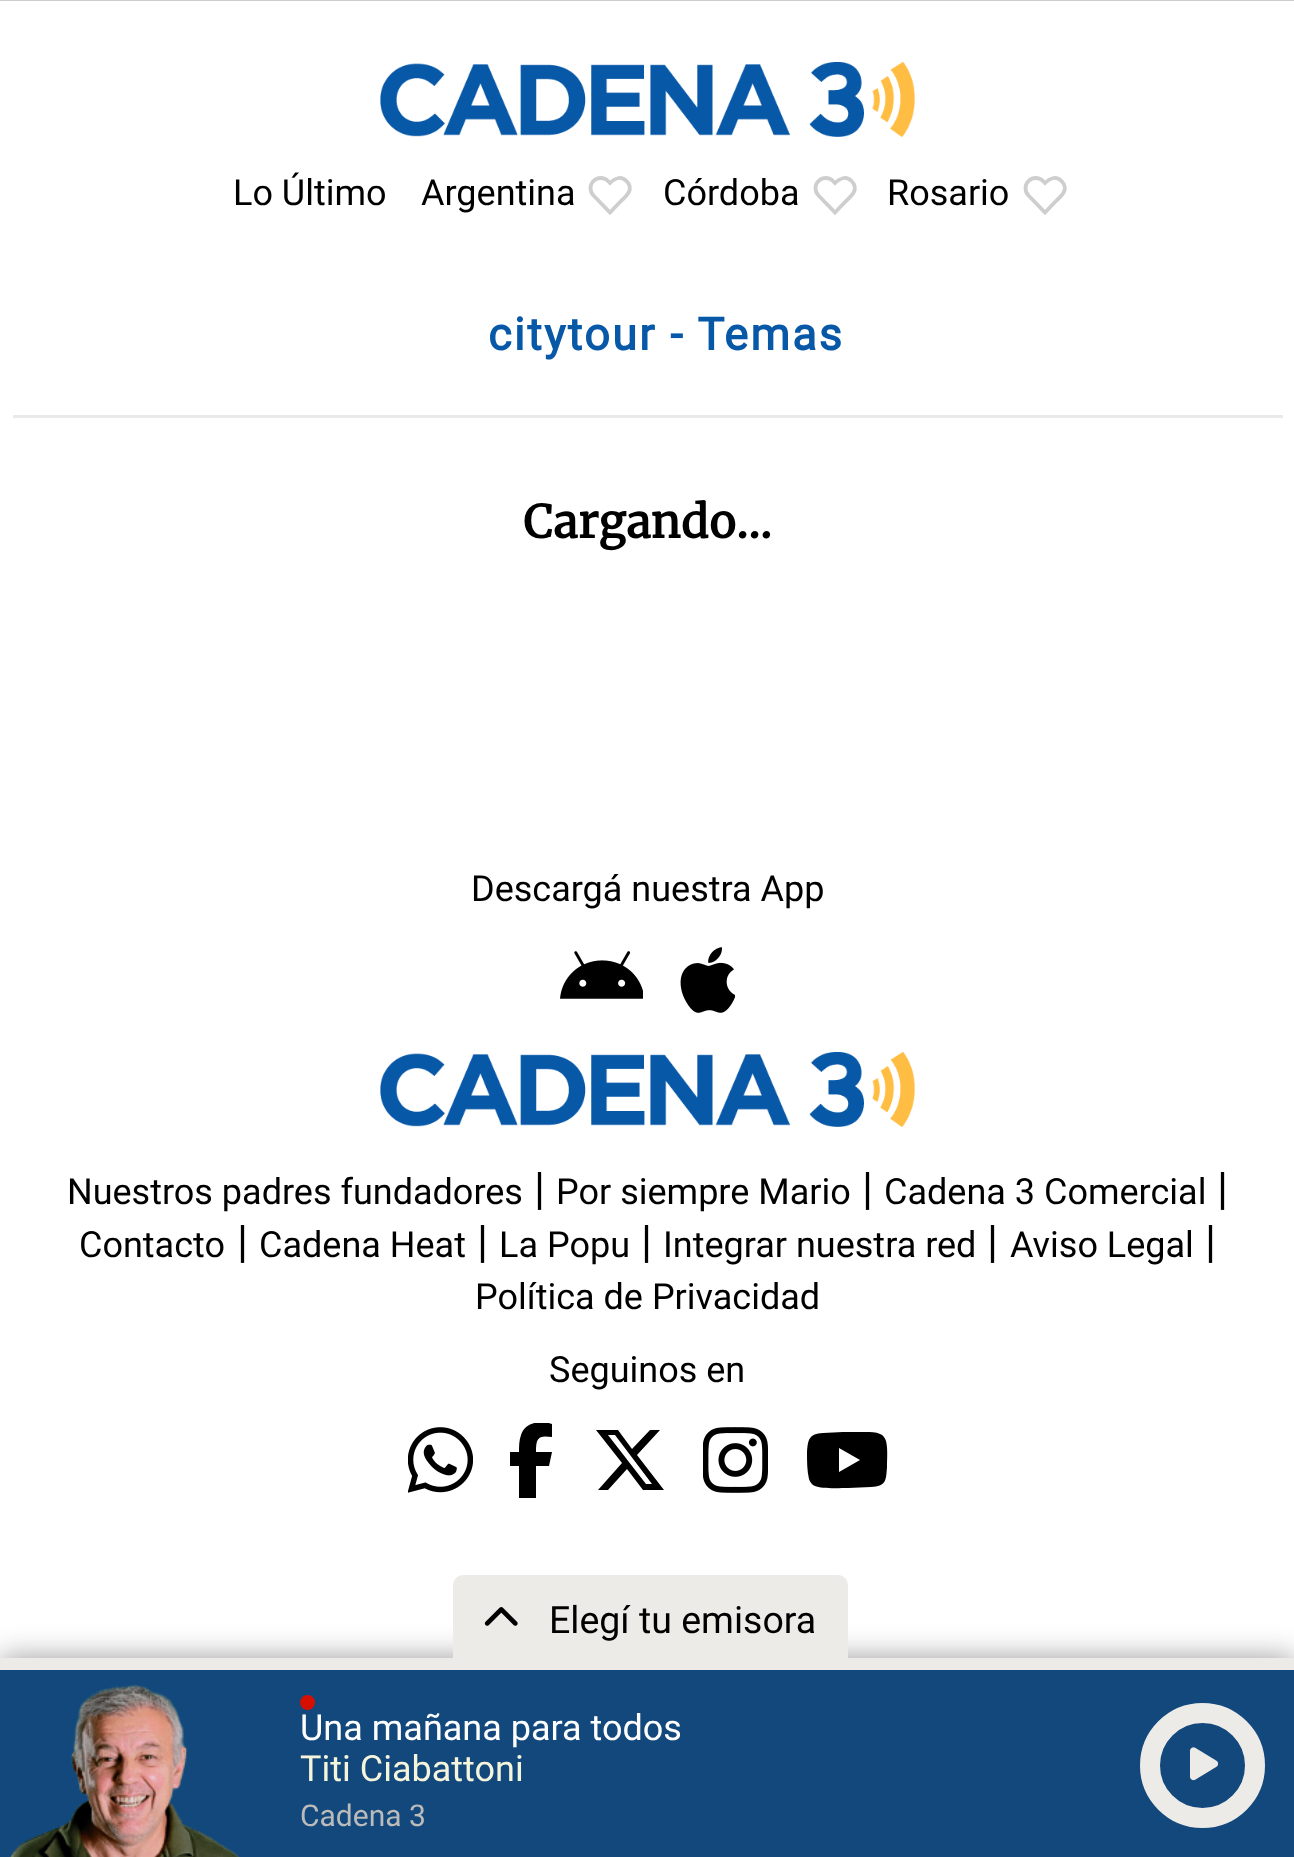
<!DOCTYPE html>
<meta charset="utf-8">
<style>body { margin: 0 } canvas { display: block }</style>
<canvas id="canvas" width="1294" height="1857"></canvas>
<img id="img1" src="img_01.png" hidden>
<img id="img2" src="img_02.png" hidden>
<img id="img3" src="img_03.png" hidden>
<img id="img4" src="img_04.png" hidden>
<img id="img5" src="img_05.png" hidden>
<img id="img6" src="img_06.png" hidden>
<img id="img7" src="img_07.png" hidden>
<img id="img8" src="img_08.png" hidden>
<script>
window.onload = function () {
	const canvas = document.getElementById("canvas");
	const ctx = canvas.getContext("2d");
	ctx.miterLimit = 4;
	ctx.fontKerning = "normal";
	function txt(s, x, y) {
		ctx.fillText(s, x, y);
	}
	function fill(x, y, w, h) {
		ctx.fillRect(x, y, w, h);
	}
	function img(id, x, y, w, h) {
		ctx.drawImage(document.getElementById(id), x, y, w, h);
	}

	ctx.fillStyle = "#FFFFFF";
	fill(0, 0, 1294, 1857);
	img("img1", 380, 62, 535, 75);
	ctx.beginPath();
	ctx.moveTo(626.5, 181);
	ctx.bezierCurveTo(621, 175.5, 614.5, 178.5, 610, 183);
	ctx.lineTo(608, 181);
	ctx.bezierCurveTo(604, 177, 597.5, 177, 593.5, 181);
	ctx.bezierCurveTo(589.5, 185, 589.5, 191.5, 593.5, 195.5);
	ctx.lineTo(610, 212.5);
	ctx.lineTo(619.5, 202.5);
	ctx.bezierCurveTo(625.5, 197, 635, 189.5, 626.5, 181);
	ctx.closePath();
	ctx.strokeStyle = "#CECECE";
	ctx.lineWidth = 3.8;
	ctx.stroke();
	ctx.beginPath();
	ctx.moveTo(851.5, 181);
	ctx.bezierCurveTo(846, 175.5, 839.5, 178.5, 835, 183);
	ctx.lineTo(833, 181);
	ctx.bezierCurveTo(829, 177, 822.5, 177, 818.5, 181);
	ctx.bezierCurveTo(814.5, 185, 814.5, 191.5, 818.5, 195.5);
	ctx.lineTo(835, 212.5);
	ctx.lineTo(844.5, 202.5);
	ctx.bezierCurveTo(850.5, 197, 860, 189.5, 851.5, 181);
	ctx.closePath();
	ctx.stroke();
	ctx.beginPath();
	ctx.moveTo(1061.5, 181);
	ctx.bezierCurveTo(1056, 175.5, 1049.5, 178.5, 1045, 183);
	ctx.lineTo(1043, 181);
	ctx.bezierCurveTo(1039, 177, 1032.5, 177, 1028.5, 181);
	ctx.bezierCurveTo(1024.5, 185, 1024.5, 191.5, 1028.5, 195.5);
	ctx.lineTo(1045, 212.5);
	ctx.lineTo(1054.5, 202.5);
	ctx.bezierCurveTo(1060.5, 197, 1070, 189.5, 1061.5, 181);
	ctx.closePath();
	ctx.stroke();
	ctx.fillStyle = "#E9E9E9";
	fill(13, 415, 1270, 3);
	ctx.fillStyle = "#CCCCCC";
	fill(0, 0, 1294, 1);
	img("img2", 560, 951, 83, 48);
	img("img3", 680, 947, 55, 66);
	img("img1", 380, 1052, 535, 75);
	img("img4", 408, 1427, 65, 66);
	ctx.save();
	ctx.beginPath();
	ctx.rect(508, 1423, 47, 75);
	ctx.clip();
	ctx.fillStyle = "#000000";
	ctx.beginPath();
	ctx.moveTo(519, 1466);
	ctx.lineTo(519, 1498);
	ctx.lineTo(536, 1498);
	ctx.lineTo(536, 1466);
	ctx.lineTo(549, 1466);
	ctx.lineTo(552, 1452);
	ctx.lineTo(536, 1452);
	ctx.bezierCurveTo(536, 1438, 538, 1435, 552, 1437);
	ctx.lineTo(552, 1424);
	ctx.bezierCurveTo(541, 1420, 525, 1422, 521, 1435);
	ctx.bezierCurveTo(519, 1441, 519, 1446, 519, 1452);
	ctx.lineTo(510, 1452);
	ctx.lineTo(510, 1466);
	ctx.closePath();
	ctx.fill();
	ctx.restore();
	ctx.fillStyle = "#000000";
	ctx.beginPath();
	ctx.moveTo(650, 1430);
	ctx.lineTo(660, 1430);
	ctx.lineTo(637, 1455);
	ctx.lineTo(664, 1490);
	ctx.lineTo(643, 1490);
	ctx.lineTo(627, 1469);
	ctx.lineTo(608, 1490);
	ctx.lineTo(598, 1490);
	ctx.lineTo(622, 1463);
	ctx.lineTo(596, 1430);
	ctx.lineTo(618, 1430);
	ctx.lineTo(632, 1449);
	ctx.closePath();
	ctx.moveTo(646, 1484);
	ctx.lineTo(652, 1484);
	ctx.lineTo(615, 1435);
	ctx.lineTo(608, 1435);
	ctx.closePath();
	ctx.fill();
	img("img5", 703, 1427, 65, 66);
	ctx.beginPath();
	ctx.moveTo(886, 1441);
	ctx.bezierCurveTo(885, 1438, 883, 1435, 880, 1434);
	ctx.bezierCurveTo(876, 1432, 870, 1432, 866, 1432);
	ctx.lineTo(843, 1432);
	ctx.lineTo(823, 1433);
	ctx.bezierCurveTo(809, 1434, 808, 1439, 807, 1453);
	ctx.bezierCurveTo(807, 1461, 807, 1471, 809, 1479);
	ctx.bezierCurveTo(810, 1482, 812, 1485, 815, 1486);
	ctx.bezierCurveTo(821, 1489, 840, 1488, 848, 1488);
	ctx.lineTo(871, 1487);
	ctx.bezierCurveTo(886, 1486, 886, 1481, 887, 1467);
	ctx.bezierCurveTo(887, 1459, 888, 1449, 886, 1441);
	ctx.closePath();
	ctx.moveTo(839, 1472);
	ctx.lineTo(839, 1448);
	ctx.lineTo(860, 1460);
	ctx.closePath();
	ctx.fill();
	ctx.fillStyle = "rgba(0, 0, 0, 0.4)";
	ctx.filter = "blur(15px)";
	ctx.beginPath();
	ctx.rect(0, 1658, 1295, 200);
	ctx.fill();
	ctx.filter = "none";
	ctx.fillStyle = "#13487D";
	fill(0, 1670, 1294, 187);
	ctx.fillStyle = "#ECEBE7";
	fill(0, 1658, 1294, 12);
	ctx.beginPath();
	ctx.roundRect(453, 1575, 395, 95, [10, 10, 0, 0]);
	ctx.fill();
	img("img6", 484, 1607, 34, 19);
	img("img7", 9, 1685, 231, 172);
	ctx.fillStyle = "#D70F00";
	ctx.beginPath();
	ctx.arc(307.5, 1702.5, 7.5, 0, Math.PI * 2);
	ctx.fill();
	ctx.beginPath();
	ctx.arc(1202.5, 1765.5, 52.5, 0, Math.PI * 2);
	ctx.strokeStyle = "#ECEBE7";
	ctx.lineWidth = 20;
	ctx.stroke();
	img("img8", 1190, 1747, 28, 34);
	ctx.font = "36px Roboto";
	ctx.fillStyle = "#000000";
	txt("Lo Último", 233, 205);
	txt("Argentina", 421, 205);
	txt("Córdoba", 663, 205);
	txt("Rosario", 887, 205);
	ctx.letterSpacing = "2.25px";
	ctx.font = "bold 45px Roboto";
	ctx.fillStyle = "#0858A8";
	txt("citytour - Temas", 488, 350);
	ctx.letterSpacing = "0px";
	ctx.font = "bold 45px Merriweather";
	ctx.fillStyle = "#000000";
	txt("Cargando...", 523, 538);
	ctx.font = "36px Roboto";
	txt("Descargá nuestra App", 471, 901);
	txt("Nuestros padres fundadores", 67, 1204);
	ctx.font = "45px Roboto";
	txt("|", 534, 1204);
	ctx.font = "36px Roboto";
	txt("Por siempre Mario", 556, 1204);
	ctx.font = "45px Roboto";
	txt("|", 862, 1204);
	ctx.font = "36px Roboto";
	txt("Cadena 3 Comercial", 884, 1204);
	ctx.font = "45px Roboto";
	txt("|", 1217, 1204);
	ctx.font = "36px Roboto";
	txt("Contacto", 79, 1257);
	ctx.font = "45px Roboto";
	txt("|", 237, 1257);
	ctx.font = "36px Roboto";
	txt("Cadena Heat", 259, 1257);
	ctx.font = "45px Roboto";
	txt("|", 477, 1257);
	ctx.font = "36px Roboto";
	txt("La Popu", 499, 1257);
	ctx.font = "45px Roboto";
	txt("|", 641, 1257);
	ctx.font = "36px Roboto";
	txt("Integrar nuestra red", 663, 1257);
	ctx.font = "45px Roboto";
	txt("|", 987, 1257);
	ctx.font = "36px Roboto";
	txt("Aviso Legal", 1010, 1257);
	ctx.font = "45px Roboto";
	txt("|", 1205, 1257);
	ctx.font = "36px Roboto";
	txt("Política de Privacidad", 475, 1309);
	txt("Seguinos en", 549, 1382);
	ctx.font = "37.5px Roboto";
	txt("Elegí tu emisora", 549, 1633);
	ctx.font = "36px Roboto";
	ctx.fillStyle = "#FFFFFF";
	txt("Una mañana para todos", 300, 1740);
	ctx.fillStyle = "#F5F5DC";
	txt("Titi Ciabattoni", 300, 1781);
	ctx.font = "30px Roboto";
	ctx.fillStyle = "#BBBBBB";
	txt("Cadena 3", 300, 1826);
};
</script>
